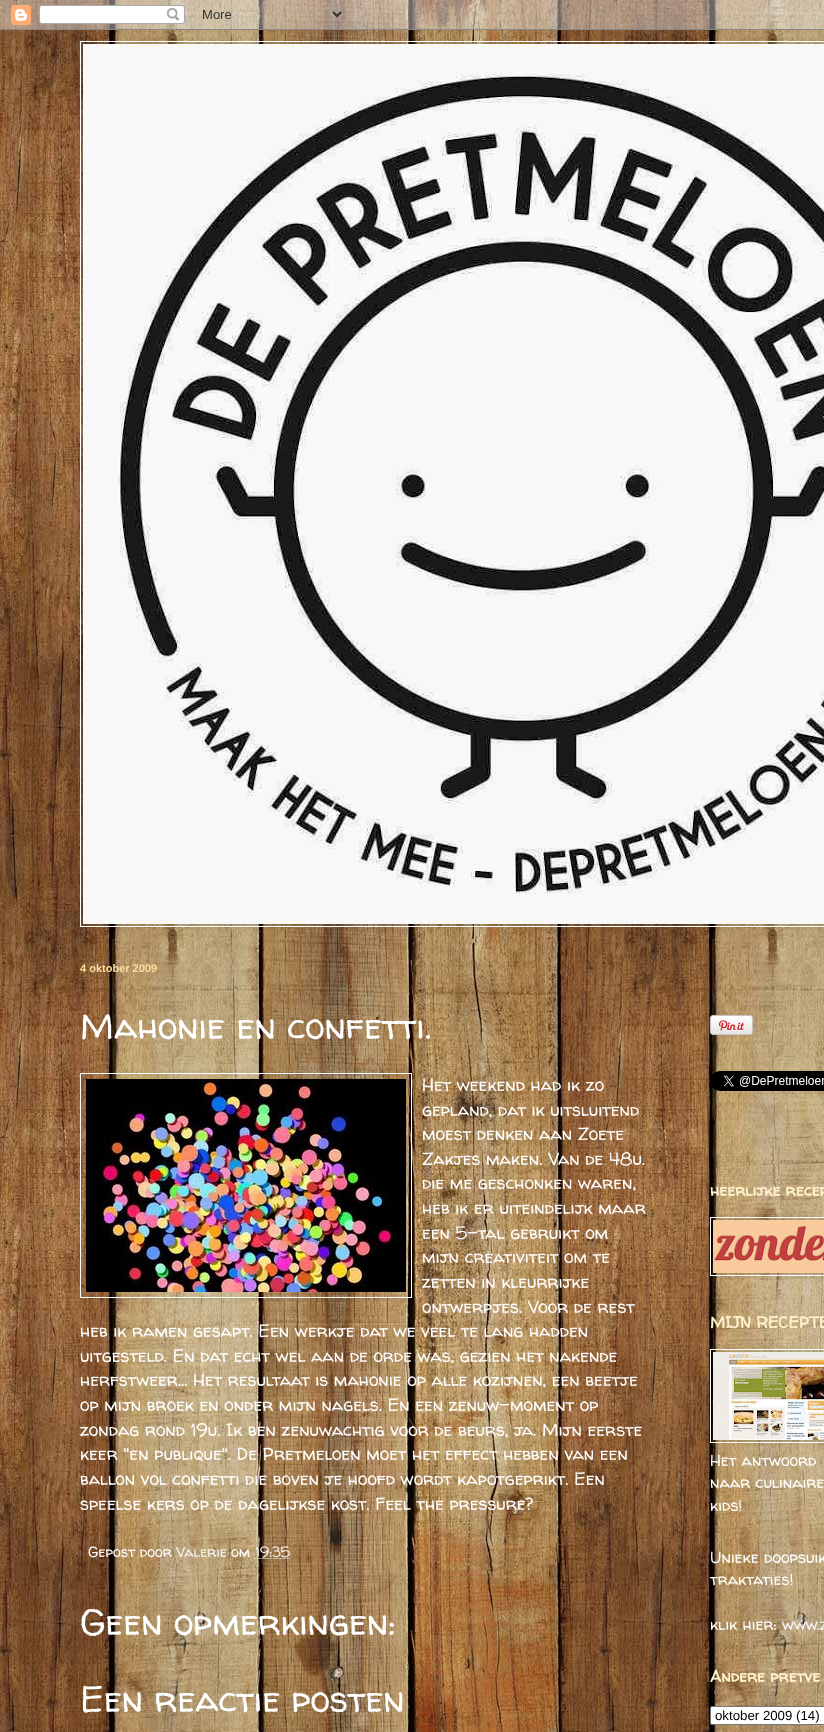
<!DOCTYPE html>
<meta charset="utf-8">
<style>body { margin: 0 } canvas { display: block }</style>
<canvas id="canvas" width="824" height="1732"></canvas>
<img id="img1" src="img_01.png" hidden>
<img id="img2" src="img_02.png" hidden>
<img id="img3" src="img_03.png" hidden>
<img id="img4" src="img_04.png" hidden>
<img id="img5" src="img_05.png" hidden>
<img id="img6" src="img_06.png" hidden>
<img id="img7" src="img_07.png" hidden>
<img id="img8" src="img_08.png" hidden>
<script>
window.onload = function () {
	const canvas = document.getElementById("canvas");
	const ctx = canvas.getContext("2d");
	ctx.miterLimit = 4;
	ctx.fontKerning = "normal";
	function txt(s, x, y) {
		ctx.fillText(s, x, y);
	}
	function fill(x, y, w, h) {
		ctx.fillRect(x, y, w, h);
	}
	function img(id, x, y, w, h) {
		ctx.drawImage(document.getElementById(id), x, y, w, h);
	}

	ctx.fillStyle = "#FFFFFF";
	fill(0, 0, 824, 1732);
	img("img1", 0, 0, 824, 1732);
	ctx.save();
	ctx.beginPath();
	ctx.moveTo(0, 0);
	ctx.lineTo(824, 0);
	ctx.lineTo(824, 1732);
	ctx.lineTo(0, 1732);
	ctx.closePath();
	ctx.moveTo(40, 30);
	ctx.lineTo(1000, 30);
	ctx.lineTo(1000, 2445);
	ctx.lineTo(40, 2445);
	ctx.closePath();
	ctx.clip("evenodd");
	ctx.fillStyle = "rgba(0, 0, 0, 0.15)";
	ctx.filter = "blur(20px)";
	ctx.beginPath();
	ctx.rect(40, 30, 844, 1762);
	ctx.fill();
	ctx.filter = "none";
	ctx.restore();
	img("img2", 0, 0, 824, 30);
	ctx.fillStyle = "rgba(0, 0, 0, 0.1)";
	ctx.filter = "blur(2.5px)";
	ctx.beginPath();
	ctx.rect(81, 42, 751, 886);
	ctx.fill();
	ctx.filter = "none";
	ctx.strokeStyle = "#FFFFFF";
	ctx.strokeRect(80.5, 41.5, 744, 885);
	img("img3", 83, 44, 741, 880);
	ctx.save();
	ctx.beginPath();
	ctx.moveTo(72, 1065);
	ctx.lineTo(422, 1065);
	ctx.lineTo(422, 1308);
	ctx.lineTo(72, 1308);
	ctx.closePath();
	ctx.moveTo(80, 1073);
	ctx.lineTo(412, 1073);
	ctx.lineTo(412, 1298);
	ctx.lineTo(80, 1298);
	ctx.closePath();
	ctx.clip("evenodd");
	ctx.filter = "blur(2.5px)";
	ctx.beginPath();
	ctx.rect(81, 1074, 332, 225);
	ctx.fill();
	ctx.filter = "none";
	ctx.restore();
	ctx.strokeRect(80.5, 1073.5, 331, 224);
	img("img4", 86, 1079, 320, 213);
	ctx.beginPath();
	ctx.moveTo(254.5, 1558.5);
	ctx.lineTo(289.5, 1558.5);
	ctx.strokeStyle = "#F4F4F4";
	ctx.setLineDash([1, 1]);
	ctx.stroke();
	img("img5", 710, 1015, 43, 20);
	img("img6", 710, 1071, 114, 20);
	ctx.filter = "blur(2.5px)";
	ctx.beginPath();
	ctx.rect(711, 1218, 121, 59);
	ctx.fill();
	ctx.filter = "none";
	ctx.strokeStyle = "#FFFFFF";
	ctx.setLineDash([]);
	ctx.strokeRect(710.5, 1217.5, 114, 58);
	img("img7", 713, 1220, 111, 53);
	ctx.filter = "blur(2.5px)";
	ctx.beginPath();
	ctx.rect(711, 1350, 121, 94);
	ctx.fill();
	ctx.filter = "none";
	ctx.strokeRect(710.5, 1349.5, 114, 93);
	img("img8", 713, 1352, 111, 88);
	ctx.fillStyle = "#FFFFFF";
	ctx.beginPath();
	ctx.roundRect(710.5, 1706.5, 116, 18, 1.5);
	ctx.fill();
	ctx.strokeStyle = "#767676";
	ctx.stroke();
	ctx.font = "bold 11px Liberation Sans";
	ctx.fillStyle = "#FFDD9F";
	txt("4 oktober 2009", 80, 972);
	ctx.font = "36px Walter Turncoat";
	ctx.fillStyle = "#FFFFFF";
	txt("Mahonie en confetti.", 80, 1039);
	ctx.font = "17.6px Walter Turncoat";
	txt("Het weekend had ik zo", 422, 1091);
	txt("gepland, dat ik uitsluitend", 422, 1116);
	txt("moest denken aan Zoete", 422, 1140);
	txt("Zakjes maken. Van de 48u.", 422, 1165);
	txt("die me geschonken waren,", 422, 1189);
	txt("heb ik er uiteindelijk maar", 422, 1214);
	txt("een 5-tal gebruikt om", 422, 1239);
	txt("mijn creativiteit om te", 422, 1263);
	txt("zetten in kleurrijke", 422, 1288);
	txt("ontwerpjes. Voor de rest", 422, 1313);
	txt("heb ik ramen gesapt. Een werkje dat we veel te lang hadden", 80, 1337);
	txt("uitgesteld. En dat echt wel aan de orde was, gezien het nakende", 80, 1362);
	txt("herfstweer... Het resultaat is mahonie op alle kozijnen, een beetje", 80, 1386);
	txt("op mijn broek en onder mijn nagels. En een zenuw-moment op", 80, 1411);
	txt("zondag rond 19u. Ik ben zenuwachtig voor de beurs, ja. Mijn eerste", 80, 1436);
	txt("keer \"en publique\". De Pretmeloen moet het effect hebben van een", 80, 1460);
	txt("ballon vol confetti die boven je hoofd wordt kapotgeprikt. Een", 80, 1485);
	txt("speelse kers op de dagelijkse kost. Feel the pressure?", 80, 1510);
	ctx.font = "14.5px Walter Turncoat";
	txt("Gepost door", 88, 1557);
	ctx.fillStyle = "#F4F4F4";
	txt("Valerie", 176, 1557);
	ctx.fillStyle = "#FFFFFF";
	txt("om", 231, 1557);
	ctx.fillStyle = "#F4F4F4";
	txt("19:35", 255, 1557);
	ctx.font = "36px Walter Turncoat";
	ctx.fillStyle = "#FFFFFF";
	txt("Geen opmerkingen:", 80, 1635);
	txt("Een reactie posten", 80, 1712);
	ctx.font = "bold 16px Walter Turncoat";
	ctx.fillStyle = "#FFF2CC";
	txt("heerlijke recep", 710, 1196);
	txt("MIJN RECEPTE", 710, 1328);
	ctx.font = "16px Walter Turncoat";
	ctx.fillStyle = "#FFFFFF";
	txt("Het antwoord", 710, 1466);
	txt("naar culinaire", 710, 1488);
	txt("kids!", 710, 1511);
	txt("Unieke doopsuik", 710, 1563);
	txt("traktaties!", 710, 1585);
	txt("klik hier:", 710, 1630);
	ctx.fillStyle = "#F4F4F4";
	txt("www.z", 782, 1630);
	ctx.font = "bold 16px Walter Turncoat";
	ctx.fillStyle = "#FFF2CC";
	txt("Andere pretve", 710, 1682);
	ctx.font = "13.25px Liberation Sans";
	ctx.fillStyle = "#000000";
	txt("oktober 2009 (14)", 715, 1720);
};
</script>
